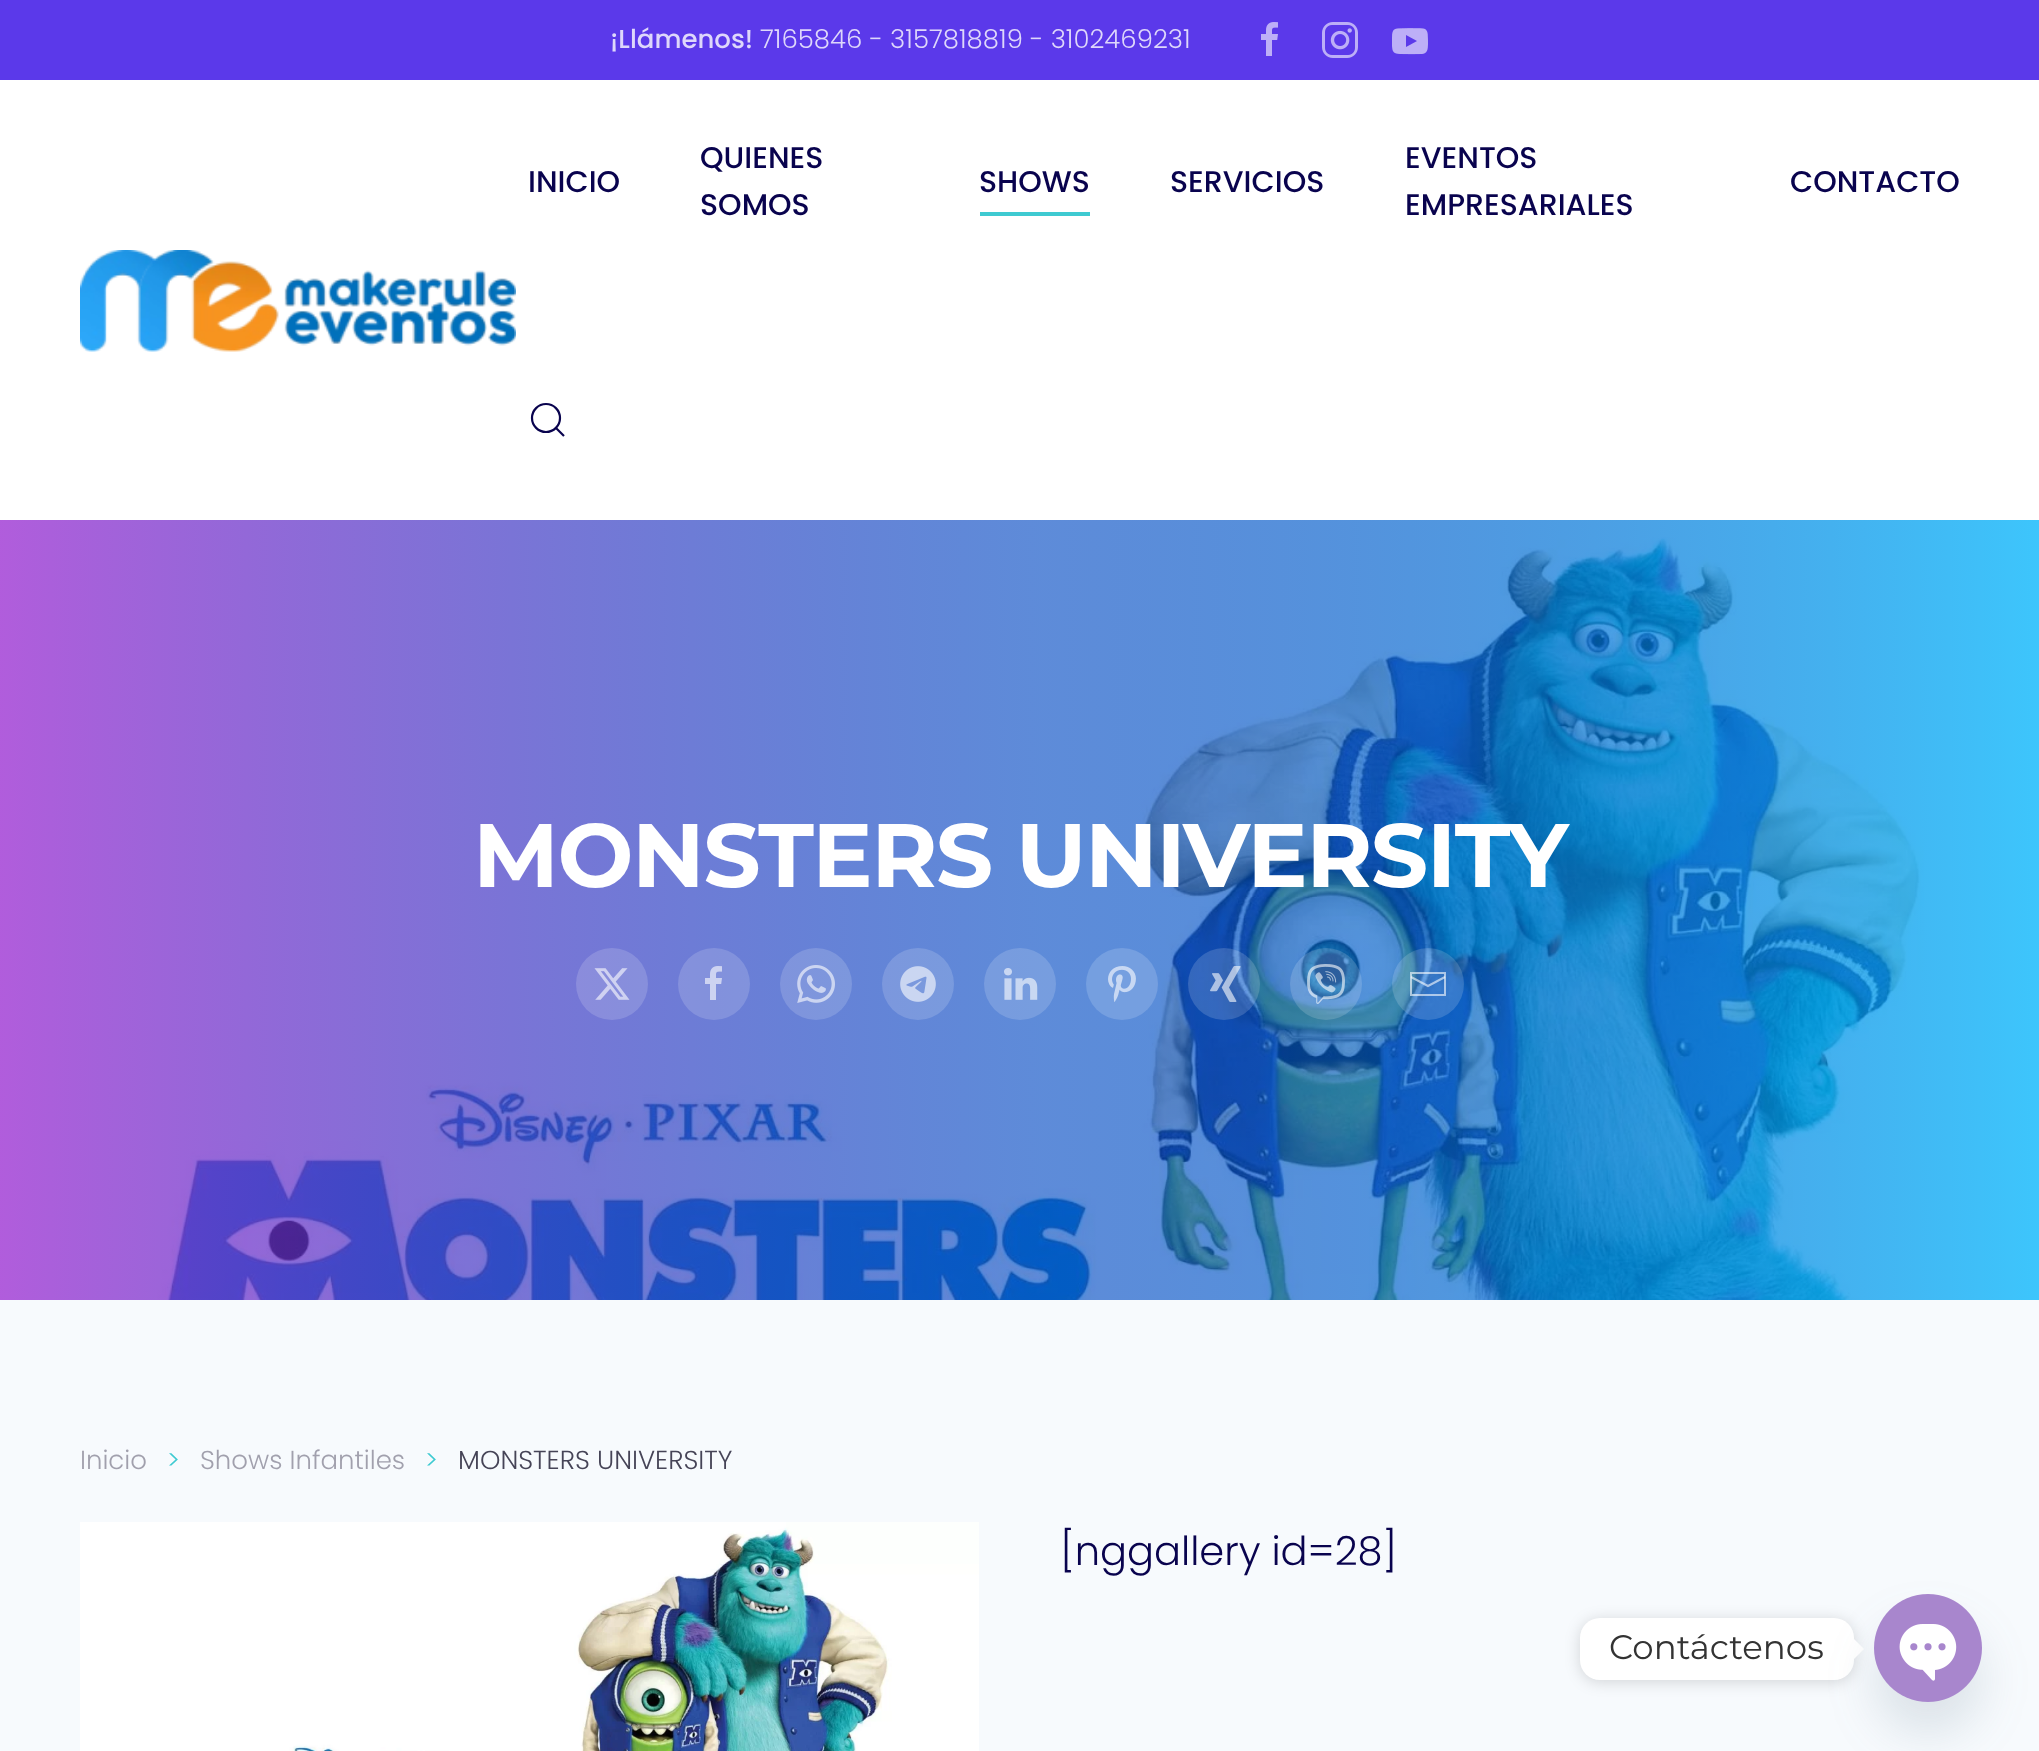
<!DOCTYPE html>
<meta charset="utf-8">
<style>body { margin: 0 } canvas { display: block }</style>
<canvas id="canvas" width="2039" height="1751"></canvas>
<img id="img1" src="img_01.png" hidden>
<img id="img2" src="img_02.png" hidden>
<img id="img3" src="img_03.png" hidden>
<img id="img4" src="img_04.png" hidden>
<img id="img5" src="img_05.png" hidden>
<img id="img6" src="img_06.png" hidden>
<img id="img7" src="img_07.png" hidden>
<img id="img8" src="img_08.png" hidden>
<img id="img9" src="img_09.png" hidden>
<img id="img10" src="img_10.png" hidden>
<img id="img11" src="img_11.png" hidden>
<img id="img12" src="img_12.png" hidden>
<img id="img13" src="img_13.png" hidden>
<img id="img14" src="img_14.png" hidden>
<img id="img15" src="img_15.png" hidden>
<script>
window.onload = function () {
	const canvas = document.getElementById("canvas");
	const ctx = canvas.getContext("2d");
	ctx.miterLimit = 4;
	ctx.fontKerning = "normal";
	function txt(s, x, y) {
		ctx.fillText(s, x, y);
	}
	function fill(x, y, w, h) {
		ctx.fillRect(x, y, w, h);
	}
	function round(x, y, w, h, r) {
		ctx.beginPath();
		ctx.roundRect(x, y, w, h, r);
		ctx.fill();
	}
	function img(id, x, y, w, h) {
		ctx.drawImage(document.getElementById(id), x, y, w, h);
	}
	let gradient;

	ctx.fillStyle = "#FFFFFF";
	fill(0, 0, 2039, 1751);
	ctx.fillStyle = "#7AB7F9";
	fill(0, 520, 2039, 780);
	ctx.fillStyle = "#5B39EA";
	fill(0, 0, 2039, 80);
	img("img1", 1261, 22, 17, 34);
	img("img2", 1322, 22, 36, 36);
	img("img3", 1392, 28, 36, 27);
	ctx.fillStyle = "#3ECAD1";
	fill(980, 212, 110, 4);
	ctx.beginPath();
	ctx.arc(546, 418, 14, 0, Math.PI * 2);
	ctx.strokeStyle = "#09034E";
	ctx.lineWidth = 2.2;
	ctx.stroke();
	ctx.beginPath();
	ctx.moveTo(556, 428);
	ctx.lineTo(564, 436);
	ctx.closePath();
	ctx.stroke();
	img("img4", 80, 250, 436, 102);
	img("img5", 157, 537, 1767, 763);
	gradient = ctx.createLinearGradient(0, 910, 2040, 910);
	gradient.addColorStop(0, "rgba(231, 3, 191, 0.5)");
	gradient.addColorStop(0.51, "rgba(9, 9, 121, 0.25)");
	gradient.addColorStop(1, "rgba(0, 212, 255, 0.5)");
	ctx.fillStyle = gradient;
	fill(0, 520, 2039, 780);
	ctx.fillStyle = "rgba(255, 255, 255, 0.16)";
	ctx.beginPath();
	ctx.arc(612, 984, 36, 0, Math.PI * 2);
	ctx.fill();
	img("img6", 594, 968, 36, 32);
	ctx.beginPath();
	ctx.arc(714, 984, 36, 0, Math.PI * 2);
	ctx.fill();
	img("img7", 705, 966, 17, 34);
	ctx.beginPath();
	ctx.arc(816, 984, 36, 0, Math.PI * 2);
	ctx.fill();
	img("img8", 797, 965, 38, 38);
	ctx.beginPath();
	ctx.arc(918, 984, 36, 0, Math.PI * 2);
	ctx.fill();
	img("img9", 900, 966, 36, 36);
	ctx.beginPath();
	ctx.arc(1020, 984, 36, 0, Math.PI * 2);
	ctx.fill();
	img("img10", 1004, 968, 34, 32);
	ctx.fillStyle = "#759FE0";
	ctx.beginPath();
	ctx.arc(1122, 984, 36, 0, Math.PI * 2);
	ctx.fill();
	img("img11", 1108, 966, 28, 36);
	ctx.fillStyle = "rgba(255, 255, 255, 0.16)";
	ctx.beginPath();
	ctx.arc(1224, 984, 36, 0, Math.PI * 2);
	ctx.fill();
	img("img12", 1210, 966, 31, 36);
	ctx.beginPath();
	ctx.arc(1326, 984, 36, 0, Math.PI * 2);
	ctx.fill();
	img("img13", 1307, 964, 38, 40);
	ctx.beginPath();
	ctx.arc(1428, 984, 36, 0, Math.PI * 2);
	ctx.fill();
	ctx.beginPath();
	ctx.moveTo(1411, 977);
	ctx.lineTo(1428, 986);
	ctx.lineTo(1445, 977);
	ctx.strokeStyle = "rgba(255, 255, 255, 0.6)";
	ctx.lineWidth = 2;
	ctx.stroke();
	ctx.fillStyle = "rgba(255, 255, 255, 0.6)";
	ctx.beginPath();
	ctx.moveTo(1410, 972);
	ctx.lineTo(1410, 996);
	ctx.lineTo(1446, 996);
	ctx.lineTo(1446, 972);
	ctx.closePath();
	ctx.moveTo(1444, 994);
	ctx.lineTo(1412, 994);
	ctx.lineTo(1412, 974);
	ctx.lineTo(1444, 974);
	ctx.closePath();
	ctx.fill();
	ctx.fillStyle = "#F7FAFD";
	fill(0, 1300, 2039, 451);
	img("img14", 80, 1522, 899, 229);
	ctx.fillStyle = "rgba(0, 0, 0, 0.15)";
	ctx.filter = "blur(7.5px)";
	ctx.beginPath();
	ctx.roundRect(1580, 1620, 274, 62, 20);
	ctx.fill();
	ctx.filter = "none";
	ctx.fillStyle = "#FFFFFF";
	round(1580, 1618, 274, 62, 20);
	ctx.beginPath();
	ctx.moveTo(1854, 1659);
	ctx.lineTo(1854, 1639);
	ctx.lineTo(1864, 1649);
	ctx.closePath();
	ctx.fill();
	ctx.fillStyle = "rgba(73, 104, 126, 0.16)";
	ctx.filter = "blur(24px)";
	ctx.beginPath();
	ctx.roundRect(1874, 1626, 108, 108, 54);
	ctx.fill();
	ctx.filter = "none";
	img("img15", 1874, 1594, 108, 108);
	ctx.font = "500 26px Poppins";
	ctx.fillStyle = "#DED7FB";
	txt("¡Llámenos!", 610, 48);
	ctx.font = "300 26px Poppins";
	txt("7165846 - 3157818819 - 3102469231", 760, 48);
	ctx.font = "500 30px Poppins";
	ctx.fillStyle = "#09034E";
	txt("INICIO", 528, 192);
	txt("QUIENES", 700, 168);
	txt("SOMOS", 700, 215);
	txt("SHOWS", 979, 192);
	txt("SERVICIOS", 1170, 192);
	txt("EVENTOS", 1405, 168);
	txt("EMPRESARIALES", 1405, 215);
	txt("CONTACTO", 1790, 192);
	ctx.letterSpacing = "-1.5px";
	ctx.font = "100 90px Montserrat";
	ctx.fillStyle = "#FFFFFF";
	txt("MONSTERS UNIVERSITY", 473, 887);
	ctx.letterSpacing = "0px";
	ctx.font = "300 26px Poppins";
	ctx.fillStyle = "#A1A0AD";
	txt("Inicio", 80, 1469);
	ctx.fillStyle = "#3ECAD1";
	txt(">", 167, 1469);
	ctx.fillStyle = "#A1A0AD";
	txt("Shows Infantiles", 200, 1469);
	ctx.fillStyle = "#3ECAD1";
	txt(">", 425, 1469);
	ctx.fillStyle = "#464457";
	txt("MONSTERS UNIVERSITY", 458, 1469);
	ctx.font = "300 40px Poppins";
	ctx.fillStyle = "#09034E";
	txt("[nggallery id=28]", 1060, 1565);
	ctx.font = "100 34px 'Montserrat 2'";
	ctx.fillStyle = "#333333";
	txt("Contáctenos", 1609, 1659);
};
</script>
